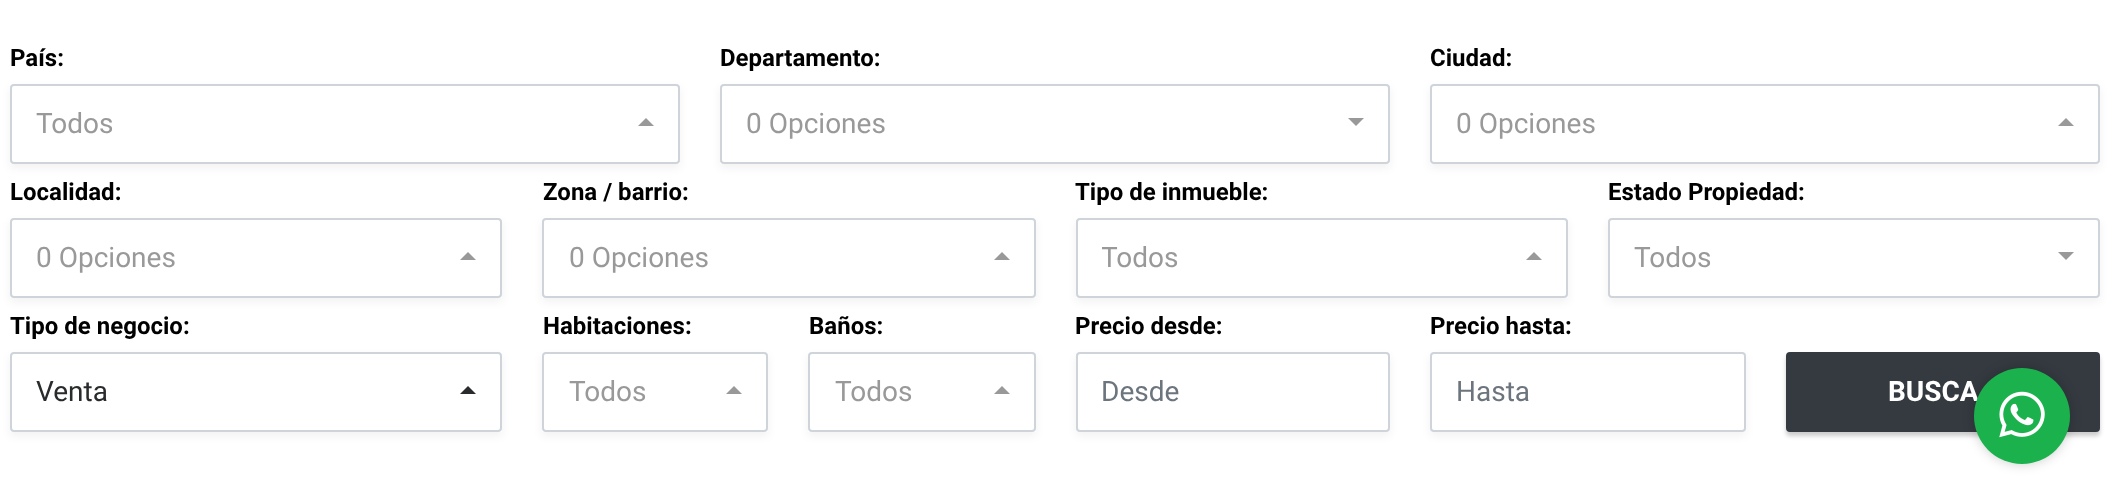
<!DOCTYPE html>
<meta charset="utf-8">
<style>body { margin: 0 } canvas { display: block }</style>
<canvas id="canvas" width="2110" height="504"></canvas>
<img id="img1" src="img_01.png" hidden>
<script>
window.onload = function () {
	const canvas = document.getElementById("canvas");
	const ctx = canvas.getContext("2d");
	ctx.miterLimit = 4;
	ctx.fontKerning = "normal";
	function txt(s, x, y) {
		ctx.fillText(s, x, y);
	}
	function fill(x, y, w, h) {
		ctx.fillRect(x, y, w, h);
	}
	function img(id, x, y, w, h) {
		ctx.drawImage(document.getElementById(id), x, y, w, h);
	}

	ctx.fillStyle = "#FFFFFF";
	fill(0, 0, 2110, 504);
	ctx.save();
	ctx.beginPath();
	ctx.moveTo(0, 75);
	ctx.lineTo(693, 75);
	ctx.lineTo(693, 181);
	ctx.lineTo(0, 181);
	ctx.closePath();
	ctx.moveTo(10, 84);
	ctx.lineTo(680, 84);
	ctx.lineTo(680, 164);
	ctx.lineTo(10, 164);
	ctx.closePath();
	ctx.clip("evenodd");
	ctx.fillStyle = "rgba(0, 0, 0, 0.05)";
	ctx.filter = "blur(4px)";
	ctx.beginPath();
	ctx.rect(10, 88, 670, 80);
	ctx.fill();
	ctx.filter = "none";
	ctx.restore();
	ctx.beginPath();
	ctx.roundRect(11, 85, 668, 78, 3);
	ctx.strokeStyle = "#CED4DA";
	ctx.lineWidth = 2;
	ctx.stroke();
	ctx.fillStyle = "#999999";
	ctx.beginPath();
	ctx.moveTo(654, 126);
	ctx.lineTo(638, 126);
	ctx.lineTo(646, 118);
	ctx.closePath();
	ctx.fill();
	ctx.save();
	ctx.beginPath();
	ctx.moveTo(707, 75);
	ctx.lineTo(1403, 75);
	ctx.lineTo(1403, 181);
	ctx.lineTo(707, 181);
	ctx.closePath();
	ctx.moveTo(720, 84);
	ctx.lineTo(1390, 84);
	ctx.lineTo(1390, 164);
	ctx.lineTo(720, 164);
	ctx.closePath();
	ctx.clip("evenodd");
	ctx.fillStyle = "rgba(0, 0, 0, 0.05)";
	ctx.filter = "blur(4px)";
	ctx.beginPath();
	ctx.rect(720, 88, 670, 80);
	ctx.fill();
	ctx.filter = "none";
	ctx.restore();
	ctx.beginPath();
	ctx.roundRect(721, 85, 668, 78, 3);
	ctx.stroke();
	ctx.beginPath();
	ctx.moveTo(1348, 118);
	ctx.lineTo(1364, 118);
	ctx.lineTo(1356, 126);
	ctx.closePath();
	ctx.fill();
	ctx.save();
	ctx.beginPath();
	ctx.moveTo(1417, 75);
	ctx.lineTo(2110, 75);
	ctx.lineTo(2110, 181);
	ctx.lineTo(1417, 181);
	ctx.closePath();
	ctx.moveTo(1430, 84);
	ctx.lineTo(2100, 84);
	ctx.lineTo(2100, 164);
	ctx.lineTo(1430, 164);
	ctx.closePath();
	ctx.clip("evenodd");
	ctx.fillStyle = "rgba(0, 0, 0, 0.05)";
	ctx.filter = "blur(4px)";
	ctx.beginPath();
	ctx.rect(1430, 88, 670, 80);
	ctx.fill();
	ctx.filter = "none";
	ctx.restore();
	ctx.beginPath();
	ctx.roundRect(1431, 85, 668, 78, 3);
	ctx.stroke();
	ctx.beginPath();
	ctx.moveTo(2074, 126);
	ctx.lineTo(2058, 126);
	ctx.lineTo(2066, 118);
	ctx.closePath();
	ctx.fill();
	ctx.save();
	ctx.beginPath();
	ctx.moveTo(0, 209);
	ctx.lineTo(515, 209);
	ctx.lineTo(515, 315);
	ctx.lineTo(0, 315);
	ctx.closePath();
	ctx.moveTo(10, 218);
	ctx.lineTo(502, 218);
	ctx.lineTo(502, 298);
	ctx.lineTo(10, 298);
	ctx.closePath();
	ctx.clip("evenodd");
	ctx.fillStyle = "rgba(0, 0, 0, 0.05)";
	ctx.filter = "blur(4px)";
	ctx.beginPath();
	ctx.rect(10, 222, 492, 80);
	ctx.fill();
	ctx.filter = "none";
	ctx.restore();
	ctx.beginPath();
	ctx.roundRect(11, 219, 490, 78, 3);
	ctx.stroke();
	ctx.beginPath();
	ctx.moveTo(476, 260);
	ctx.lineTo(460, 260);
	ctx.lineTo(468, 252);
	ctx.closePath();
	ctx.fill();
	ctx.save();
	ctx.beginPath();
	ctx.moveTo(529, 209);
	ctx.lineTo(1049, 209);
	ctx.lineTo(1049, 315);
	ctx.lineTo(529, 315);
	ctx.closePath();
	ctx.moveTo(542, 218);
	ctx.lineTo(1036, 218);
	ctx.lineTo(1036, 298);
	ctx.lineTo(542, 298);
	ctx.closePath();
	ctx.clip("evenodd");
	ctx.fillStyle = "rgba(0, 0, 0, 0.05)";
	ctx.filter = "blur(4px)";
	ctx.beginPath();
	ctx.rect(542, 222, 494, 80);
	ctx.fill();
	ctx.filter = "none";
	ctx.restore();
	ctx.beginPath();
	ctx.roundRect(543, 219, 492, 78, 3);
	ctx.stroke();
	ctx.beginPath();
	ctx.moveTo(1010, 260);
	ctx.lineTo(994, 260);
	ctx.lineTo(1002, 252);
	ctx.closePath();
	ctx.fill();
	ctx.save();
	ctx.beginPath();
	ctx.moveTo(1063, 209);
	ctx.lineTo(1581, 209);
	ctx.lineTo(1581, 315);
	ctx.lineTo(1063, 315);
	ctx.closePath();
	ctx.moveTo(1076, 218);
	ctx.lineTo(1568, 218);
	ctx.lineTo(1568, 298);
	ctx.lineTo(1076, 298);
	ctx.closePath();
	ctx.clip("evenodd");
	ctx.fillStyle = "rgba(0, 0, 0, 0.05)";
	ctx.filter = "blur(4px)";
	ctx.beginPath();
	ctx.rect(1076, 222, 492, 80);
	ctx.fill();
	ctx.filter = "none";
	ctx.restore();
	ctx.beginPath();
	ctx.roundRect(1077, 219, 490, 78, 3);
	ctx.stroke();
	ctx.beginPath();
	ctx.moveTo(1542, 260);
	ctx.lineTo(1526, 260);
	ctx.lineTo(1534, 252);
	ctx.closePath();
	ctx.fill();
	ctx.save();
	ctx.beginPath();
	ctx.moveTo(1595, 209);
	ctx.lineTo(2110, 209);
	ctx.lineTo(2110, 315);
	ctx.lineTo(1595, 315);
	ctx.closePath();
	ctx.moveTo(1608, 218);
	ctx.lineTo(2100, 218);
	ctx.lineTo(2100, 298);
	ctx.lineTo(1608, 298);
	ctx.closePath();
	ctx.clip("evenodd");
	ctx.fillStyle = "rgba(0, 0, 0, 0.05)";
	ctx.filter = "blur(4px)";
	ctx.beginPath();
	ctx.rect(1608, 222, 492, 80);
	ctx.fill();
	ctx.filter = "none";
	ctx.restore();
	ctx.beginPath();
	ctx.roundRect(1609, 219, 490, 78, 3);
	ctx.stroke();
	ctx.beginPath();
	ctx.moveTo(2058, 252);
	ctx.lineTo(2074, 252);
	ctx.lineTo(2066, 260);
	ctx.closePath();
	ctx.fill();
	ctx.save();
	ctx.beginPath();
	ctx.moveTo(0, 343);
	ctx.lineTo(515, 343);
	ctx.lineTo(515, 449);
	ctx.lineTo(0, 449);
	ctx.closePath();
	ctx.moveTo(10, 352);
	ctx.lineTo(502, 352);
	ctx.lineTo(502, 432);
	ctx.lineTo(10, 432);
	ctx.closePath();
	ctx.clip("evenodd");
	ctx.fillStyle = "rgba(0, 0, 0, 0.05)";
	ctx.filter = "blur(4px)";
	ctx.beginPath();
	ctx.rect(10, 356, 492, 80);
	ctx.fill();
	ctx.filter = "none";
	ctx.restore();
	ctx.beginPath();
	ctx.roundRect(11, 353, 490, 78, 3);
	ctx.stroke();
	ctx.fillStyle = "#292B2C";
	ctx.beginPath();
	ctx.moveTo(476, 394);
	ctx.lineTo(460, 394);
	ctx.lineTo(468, 386);
	ctx.closePath();
	ctx.fill();
	ctx.save();
	ctx.beginPath();
	ctx.moveTo(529, 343);
	ctx.lineTo(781, 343);
	ctx.lineTo(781, 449);
	ctx.lineTo(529, 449);
	ctx.closePath();
	ctx.moveTo(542, 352);
	ctx.lineTo(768, 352);
	ctx.lineTo(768, 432);
	ctx.lineTo(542, 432);
	ctx.closePath();
	ctx.clip("evenodd");
	ctx.fillStyle = "rgba(0, 0, 0, 0.05)";
	ctx.filter = "blur(4px)";
	ctx.beginPath();
	ctx.rect(542, 356, 226, 80);
	ctx.fill();
	ctx.filter = "none";
	ctx.restore();
	ctx.beginPath();
	ctx.roundRect(543, 353, 224, 78, 3);
	ctx.stroke();
	ctx.fillStyle = "#999999";
	ctx.beginPath();
	ctx.moveTo(742, 394);
	ctx.lineTo(726, 394);
	ctx.lineTo(734, 386);
	ctx.closePath();
	ctx.fill();
	ctx.save();
	ctx.beginPath();
	ctx.moveTo(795, 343);
	ctx.lineTo(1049, 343);
	ctx.lineTo(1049, 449);
	ctx.lineTo(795, 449);
	ctx.closePath();
	ctx.moveTo(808, 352);
	ctx.lineTo(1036, 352);
	ctx.lineTo(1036, 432);
	ctx.lineTo(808, 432);
	ctx.closePath();
	ctx.clip("evenodd");
	ctx.fillStyle = "rgba(0, 0, 0, 0.05)";
	ctx.filter = "blur(4px)";
	ctx.beginPath();
	ctx.rect(808, 356, 228, 80);
	ctx.fill();
	ctx.filter = "none";
	ctx.restore();
	ctx.beginPath();
	ctx.roundRect(809, 353, 226, 78, 3);
	ctx.stroke();
	ctx.beginPath();
	ctx.moveTo(1010, 394);
	ctx.lineTo(994, 394);
	ctx.lineTo(1002, 386);
	ctx.closePath();
	ctx.fill();
	ctx.save();
	ctx.beginPath();
	ctx.moveTo(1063, 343);
	ctx.lineTo(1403, 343);
	ctx.lineTo(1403, 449);
	ctx.lineTo(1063, 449);
	ctx.closePath();
	ctx.moveTo(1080, 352);
	ctx.lineTo(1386, 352);
	ctx.bezierCurveTo(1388, 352, 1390, 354, 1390, 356);
	ctx.lineTo(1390, 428);
	ctx.bezierCurveTo(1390, 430, 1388, 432, 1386, 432);
	ctx.lineTo(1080, 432);
	ctx.bezierCurveTo(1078, 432, 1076, 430, 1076, 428);
	ctx.lineTo(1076, 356);
	ctx.bezierCurveTo(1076, 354, 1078, 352, 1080, 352);
	ctx.closePath();
	ctx.clip("evenodd");
	ctx.fillStyle = "rgba(0, 0, 0, 0.05)";
	ctx.filter = "blur(4px)";
	ctx.beginPath();
	ctx.roundRect(1076, 356, 314, 80, 4);
	ctx.fill();
	ctx.filter = "none";
	ctx.restore();
	ctx.beginPath();
	ctx.roundRect(1077, 353, 312, 78, 3);
	ctx.stroke();
	ctx.save();
	ctx.beginPath();
	ctx.moveTo(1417, 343);
	ctx.lineTo(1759, 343);
	ctx.lineTo(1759, 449);
	ctx.lineTo(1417, 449);
	ctx.closePath();
	ctx.moveTo(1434, 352);
	ctx.lineTo(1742, 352);
	ctx.bezierCurveTo(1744, 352, 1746, 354, 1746, 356);
	ctx.lineTo(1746, 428);
	ctx.bezierCurveTo(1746, 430, 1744, 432, 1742, 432);
	ctx.lineTo(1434, 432);
	ctx.bezierCurveTo(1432, 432, 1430, 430, 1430, 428);
	ctx.lineTo(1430, 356);
	ctx.bezierCurveTo(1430, 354, 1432, 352, 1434, 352);
	ctx.closePath();
	ctx.clip("evenodd");
	ctx.fillStyle = "rgba(0, 0, 0, 0.05)";
	ctx.filter = "blur(4px)";
	ctx.beginPath();
	ctx.roundRect(1430, 356, 316, 80, 4);
	ctx.fill();
	ctx.filter = "none";
	ctx.restore();
	ctx.beginPath();
	ctx.roundRect(1431, 353, 314, 78, 3);
	ctx.stroke();
	ctx.fillStyle = "rgba(0, 0, 0, 0.2)";
	ctx.filter = "blur(2px)";
	ctx.beginPath();
	ctx.roundRect(1786, 356, 314, 80, 4);
	ctx.fill();
	ctx.filter = "none";
	ctx.fillStyle = "#343A40";
	ctx.beginPath();
	ctx.roundRect(1787, 353, 312, 78, 3);
	ctx.fill();
	ctx.strokeStyle = "#343A40";
	ctx.stroke();
	ctx.fillStyle = "rgba(0, 0, 0, 0.2)";
	ctx.filter = "blur(6px)";
	ctx.beginPath();
	ctx.roundRect(1974, 368, 96, 96, 48);
	ctx.fill();
	ctx.filter = "none";
	ctx.font = "bold 24px Roboto";
	ctx.fillStyle = "#000000";
	txt("País:", 10, 66);
	ctx.font = "28px Roboto";
	ctx.fillStyle = "#999999";
	txt("Todos", 36, 133);
	ctx.font = "bold 24px Roboto";
	ctx.fillStyle = "#000000";
	txt("Departamento:", 720, 66);
	ctx.font = "28px Roboto";
	ctx.fillStyle = "#999999";
	txt("0 Opciones", 746, 133);
	ctx.font = "bold 24px Roboto";
	ctx.fillStyle = "#000000";
	txt("Ciudad:", 1430, 66);
	ctx.font = "28px Roboto";
	ctx.fillStyle = "#999999";
	txt("0 Opciones", 1456, 133);
	ctx.font = "bold 24px Roboto";
	ctx.fillStyle = "#000000";
	txt("Localidad:", 10, 200);
	ctx.font = "28px Roboto";
	ctx.fillStyle = "#999999";
	txt("0 Opciones", 36, 267);
	ctx.font = "bold 24px Roboto";
	ctx.fillStyle = "#000000";
	txt("Zona / barrio:", 543, 200);
	ctx.font = "28px Roboto";
	ctx.fillStyle = "#999999";
	txt("0 Opciones", 569, 267);
	ctx.font = "bold 24px Roboto";
	ctx.fillStyle = "#000000";
	txt("Tipo de inmueble:", 1075, 200);
	ctx.save();
	ctx.beginPath();
	ctx.rect(1102, 236, 416, 42);
	ctx.clip();
	ctx.font = "28px Roboto";
	ctx.fillStyle = "#999999";
	txt("Todos", 1101, 267);
	ctx.restore();
	txt("Estado Propiedad:", 1608, 200);
	ctx.font = "28px Roboto";
	ctx.fillStyle = "#999999";
	txt("Todos", 1634, 267);
	ctx.font = "bold 24px Roboto";
	ctx.fillStyle = "#000000";
	txt("Tipo de negocio:", 10, 334);
	ctx.font = "28px Roboto";
	ctx.fillStyle = "#292B2C";
	txt("Venta", 36, 401);
	ctx.font = "bold 24px Roboto";
	ctx.fillStyle = "#000000";
	txt("Habitaciones:", 543, 334);
	ctx.font = "28px Roboto";
	ctx.fillStyle = "#999999";
	txt("Todos", 569, 401);
	ctx.font = "bold 24px Roboto";
	ctx.fillStyle = "#000000";
	txt("Baños:", 809, 334);
	ctx.font = "28px Roboto";
	ctx.fillStyle = "#999999";
	txt("Todos", 835, 401);
	ctx.font = "bold 24px Roboto";
	ctx.fillStyle = "#000000";
	txt("Precio desde:", 1075, 334);
	ctx.font = "28px Roboto";
	ctx.fillStyle = "#6C757D";
	txt("Desde", 1101, 401);
	ctx.font = "bold 24px Roboto";
	ctx.fillStyle = "#000000";
	txt("Precio hasta:", 1430, 334);
	ctx.font = "28px Roboto";
	ctx.fillStyle = "#6C757D";
	txt("Hasta", 1456, 401);
	ctx.font = "bold 28px Roboto";
	ctx.fillStyle = "#FFFFFF";
	txt("BUSCA", 1888, 401);
	ctx.fillStyle = "#1BB24E";
	ctx.beginPath();
	ctx.arc(2022, 416, 48, 0, Math.PI * 2);
	ctx.fill();
	img("img1", 1999, 391, 46, 47);
};
</script>
